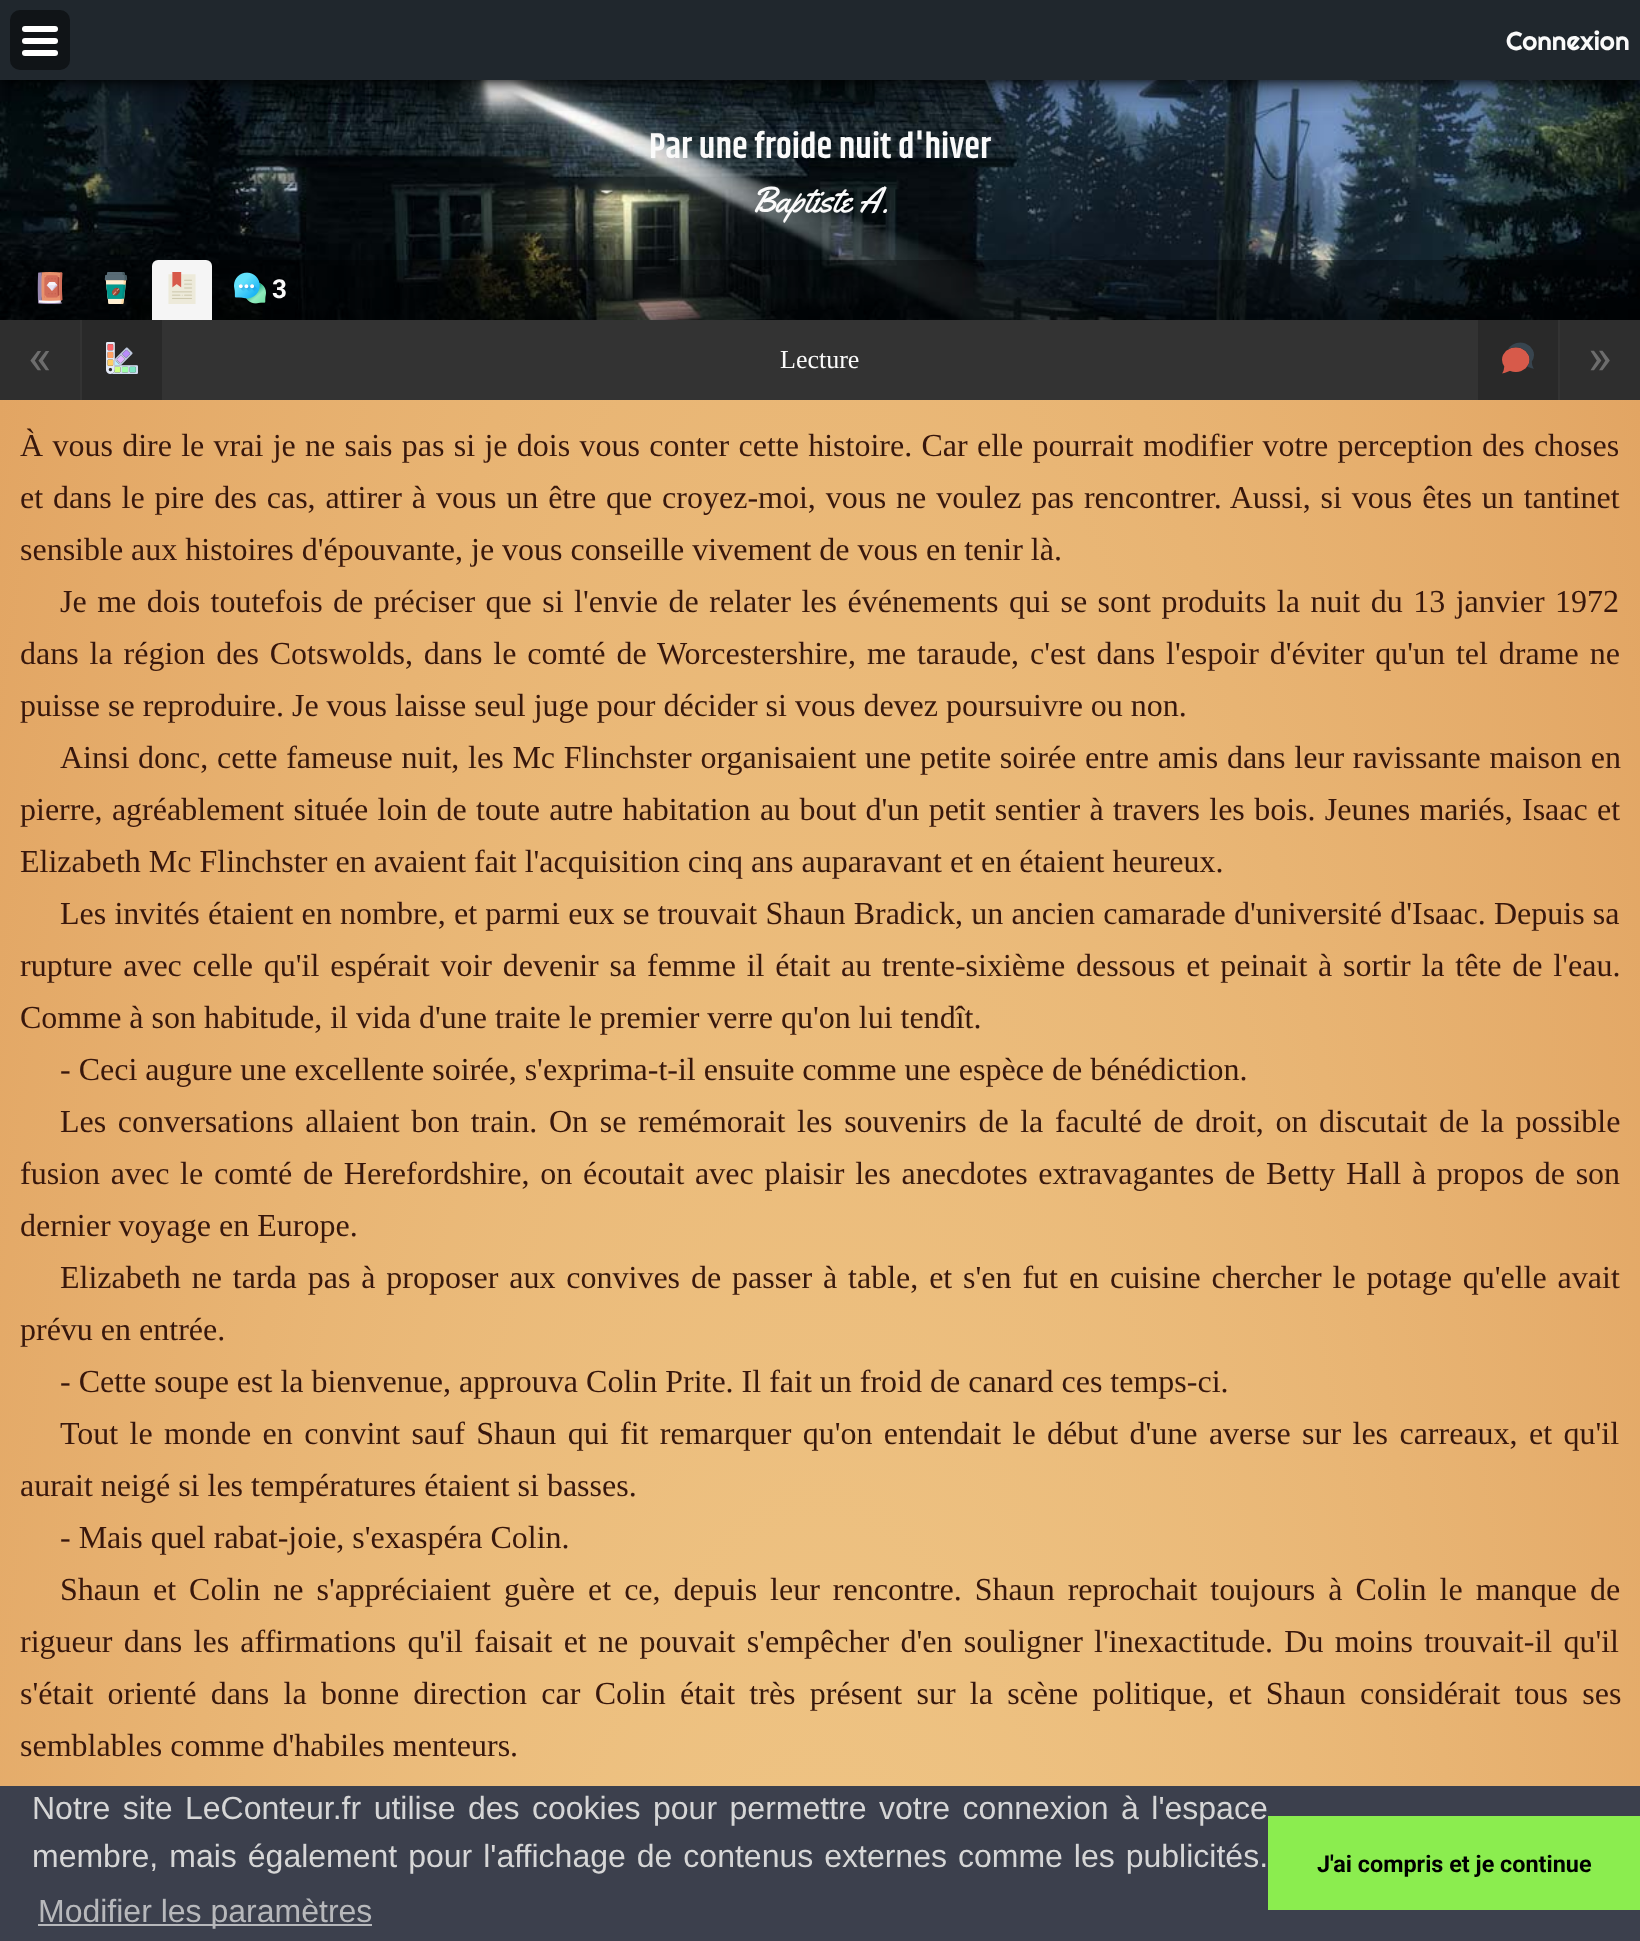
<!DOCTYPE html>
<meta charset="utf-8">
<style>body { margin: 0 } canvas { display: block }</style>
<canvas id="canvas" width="1640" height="1941"></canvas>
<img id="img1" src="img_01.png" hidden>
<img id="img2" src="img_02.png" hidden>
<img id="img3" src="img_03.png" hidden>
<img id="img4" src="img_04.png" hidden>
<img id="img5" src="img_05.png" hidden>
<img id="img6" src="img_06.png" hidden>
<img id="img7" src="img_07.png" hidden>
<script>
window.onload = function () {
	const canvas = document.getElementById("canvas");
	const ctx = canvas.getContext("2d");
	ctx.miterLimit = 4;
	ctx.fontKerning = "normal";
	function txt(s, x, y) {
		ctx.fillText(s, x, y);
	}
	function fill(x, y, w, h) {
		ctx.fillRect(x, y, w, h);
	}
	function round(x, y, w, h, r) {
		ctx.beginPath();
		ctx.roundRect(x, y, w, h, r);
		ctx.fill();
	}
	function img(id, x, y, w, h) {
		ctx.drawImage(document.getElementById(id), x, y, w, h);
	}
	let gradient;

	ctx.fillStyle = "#333333";
	fill(0, 0, 1640, 1941);
	img("img1", 0, 80, 1640, 240);
	ctx.fillStyle = "#000000";
	ctx.filter = "blur(7px)";
	ctx.beginPath();
	ctx.rect(0, 0, 1640, 80);
	ctx.fill();
	ctx.filter = "none";
	ctx.fillStyle = "rgba(0, 0, 0, 0.33)";
	ctx.filter = "blur(20px)";
	ctx.beginPath();
	ctx.rect(0, 0, 1640, 80);
	ctx.fill();
	ctx.filter = "none";
	ctx.fillStyle = "#20272D";
	fill(0, 0, 1640, 80);
	ctx.save();
	ctx.beginPath();
	ctx.rect(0, 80, 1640, 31);
	ctx.clip();
	ctx.fillStyle = "rgba(0, 0, 0, 0.33)";
	ctx.filter = "blur(20px)";
	ctx.beginPath();
	ctx.rect(0, 0, 1640, 80);
	ctx.fill();
	ctx.filter = "none";
	ctx.restore();
	ctx.fillStyle = "#101417";
	round(10, 10, 60, 60, 10);
	ctx.fillStyle = "#FFFFFF";
	round(22, 26, 36, 6, 3);
	round(22, 38, 36, 6, 3);
	round(22, 50, 36, 6, 3);
	ctx.fillStyle = "rgba(0, 0, 0, 0.33)";
	fill(0, 260, 1640, 60);
	img("img2", 37, 272, 26, 32);
	img("img3", 104, 272, 24, 32);
	ctx.fillStyle = "#F5F5F5";
	ctx.beginPath();
	ctx.roundRect(152, 260, 60, 60, [6, 6, 0, 0]);
	ctx.fill();
	img("img4", 168, 272, 28, 32);
	img("img5", 234, 272, 32, 32);
	ctx.fillStyle = "#2E2E2E";
	fill(0, 320, 80, 80);
	ctx.fillStyle = "#292929";
	fill(82, 320, 80, 80);
	img("img6", 106, 342, 32, 32);
	fill(1478, 320, 80, 80);
	img("img7", 1502, 342, 32, 32);
	ctx.fillStyle = "#2E2E2E";
	fill(1560, 320, 80, 80);
	gradient = ctx.createRadialGradient(820, 879, 0, 820, 879, 1160);
	gradient.addColorStop(0, "#FBE3A5");
	gradient.addColorStop(1, "#E2A563");
	ctx.fillStyle = gradient;
	ctx.beginPath();
	ctx.rect(0, 400, 1640, 1386);
	ctx.save();
	ctx.clip();
	ctx.scale(1, 7897 / 1160);
	ctx.fillRect(0, 0, 1640, 286);
	ctx.restore();
	ctx.fillStyle = "#3C404D";
	fill(0, 1786, 1640, 155);
	ctx.fillStyle = "#B7B8BB";
	fill(38, 1924, 334, 2);
	ctx.fillStyle = "#8BED4F";
	fill(1268, 1816, 372, 94);
	ctx.font = "26px Righteous";
	ctx.fillStyle = "#FAFAFA";
	txt("Connexion", 1506, 50);
	ctx.font = "600 36px Khand";
	txt("Par une froide nuit d'hiver", 649, 158);
	ctx.font = "36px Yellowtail";
	txt("Baptiste A.", 751, 212);
	ctx.font = "bold 26px Roboto";
	txt("3", 272, 298);
	ctx.font = "50px Roboto";
	ctx.fillStyle = "#6D6D6D";
	txt("«", 28, 374);
	txt("»", 1588, 374);
	ctx.font = "26px Liberation Serif";
	ctx.fillStyle = "#FAFAFA";
	txt("Lecture", 780, 368);
	ctx.wordSpacing = "1.3px";
	ctx.font = "32px Liberation Serif";
	ctx.fillStyle = "#38170C";
	txt("À vous dire le vrai je ne sais pas si je dois vous conter cette histoire. Car elle pourrait modifier votre perception des choses", 20, 456);
	ctx.wordSpacing = "1.9px";
	txt("et dans le pire des cas, attirer à vous un être que croyez-moi, vous ne voulez pas rencontrer. Aussi, si vous êtes un tantinet", 20, 508);
	ctx.wordSpacing = "0px";
	txt("sensible aux histoires d'épouvante, je vous conseille vivement de vous en tenir là.", 20, 560);
	ctx.wordSpacing = "2.5px";
	txt("Je me dois toutefois de préciser que si l'envie de relater les événements qui se sont produits la nuit du 13 janvier 1972", 60, 612);
	ctx.wordSpacing = "2.9px";
	txt("dans la région des Cotswolds, dans le comté de Worcestershire, me taraude, c'est dans l'espoir d'éviter qu'un tel drame ne", 20, 664);
	ctx.wordSpacing = "0px";
	txt("puisse se reproduire. Je vous laisse seul juge pour décider si vous devez poursuivre ou non.", 20, 716);
	ctx.wordSpacing = "0.75px";
	txt("Ainsi donc, cette fameuse nuit, les Mc Flinchster organisaient une petite soirée entre amis dans leur ravissante maison en", 60, 768);
	ctx.wordSpacing = "1.3px";
	txt("pierre, agréablement située loin de toute autre habitation au bout d'un petit sentier à travers les bois. Jeunes mariés, Isaac et", 20, 820);
	ctx.wordSpacing = "0px";
	txt("Elizabeth Mc Flinchster en avaient fait l'acquisition cinq ans auparavant et en étaient heureux.", 20, 872);
	ctx.wordSpacing = "0.25px";
	txt("Les invités étaient en nombre, et parmi eux se trouvait Shaun Bradick, un ancien camarade d'université d'Isaac. Depuis sa", 60, 924);
	ctx.wordSpacing = "2.8px";
	txt("rupture avec celle qu'il espérait voir devenir sa femme il était au trente-sixième dessous et peinait à sortir la tête de l'eau.", 20, 976);
	ctx.wordSpacing = "0px";
	txt("Comme à son habitude, il vida d'une traite le premier verre qu'on lui tendît.", 20, 1028);
	txt("- Ceci augure une excellente soirée, s'exprima-t-il ensuite comme une espèce de bénédiction.", 60, 1080);
	ctx.wordSpacing = "3.6px";
	txt("Les conversations allaient bon train. On se remémorait les souvenirs de la faculté de droit, on discutait de la possible", 60, 1132);
	ctx.wordSpacing = "2.75px";
	txt("fusion avec le comté de Herefordshire, on écoutait avec plaisir les anecdotes extravagantes de Betty Hall à propos de son", 20, 1184);
	ctx.wordSpacing = "0px";
	txt("dernier voyage en Europe.", 20, 1236);
	ctx.wordSpacing = "2.9px";
	txt("Elizabeth ne tarda pas à proposer aux convives de passer à table, et s'en fut en cuisine chercher le potage qu'elle avait", 60, 1288);
	ctx.wordSpacing = "0px";
	txt("prévu en entrée.", 20, 1340);
	txt("- Cette soupe est la bienvenue, approuva Colin Prite. Il fait un froid de canard ces temps-ci.", 60, 1392);
	ctx.wordSpacing = "3.4px";
	txt("Tout le monde en convint sauf Shaun qui fit remarquer qu'on entendait le début d'une averse sur les carreaux, et qu'il", 60, 1444);
	ctx.wordSpacing = "0px";
	txt("aurait neigé si les températures étaient si basses.", 20, 1496);
	txt("- Mais quel rabat-joie, s'exaspéra Colin.", 60, 1548);
	ctx.wordSpacing = "5px";
	txt("Shaun et Colin ne s'appréciaient guère et ce, depuis leur rencontre. Shaun reprochait toujours à Colin le manque de", 60, 1600);
	ctx.wordSpacing = "3.25px";
	txt("rigueur dans les affirmations qu'il faisait et ne pouvait s'empêcher d'en souligner l'inexactitude. Du moins trouvait-il qu'il", 20, 1652);
	ctx.wordSpacing = "6.25px";
	txt("s'était orienté dans la bonne direction car Colin était très présent sur la scène politique, et Shaun considérait tous ses", 20, 1704);
	ctx.wordSpacing = "0px";
	txt("semblables comme d'habiles menteurs.", 20, 1756);
	ctx.wordSpacing = "3.6px";
	ctx.font = "32px Liberation Sans";
	ctx.fillStyle = "#D6D6D6";
	txt("Notre site LeConteur.fr utilise des cookies pour permettre votre connexion à l'espace", 32, 1819);
	ctx.wordSpacing = "2.1px";
	txt("membre, mais également pour l'affichage de contenus externes comme les publicités.", 32, 1867);
	ctx.wordSpacing = "0px";
	ctx.fillStyle = "#B7B8BB";
	txt("Modifier les paramètres", 38, 1922);
	ctx.font = "bold 23.4px Roboto";
	ctx.fillStyle = "#000000";
	txt("J'ai compris et je continue", 1317, 1872);
};
</script>
